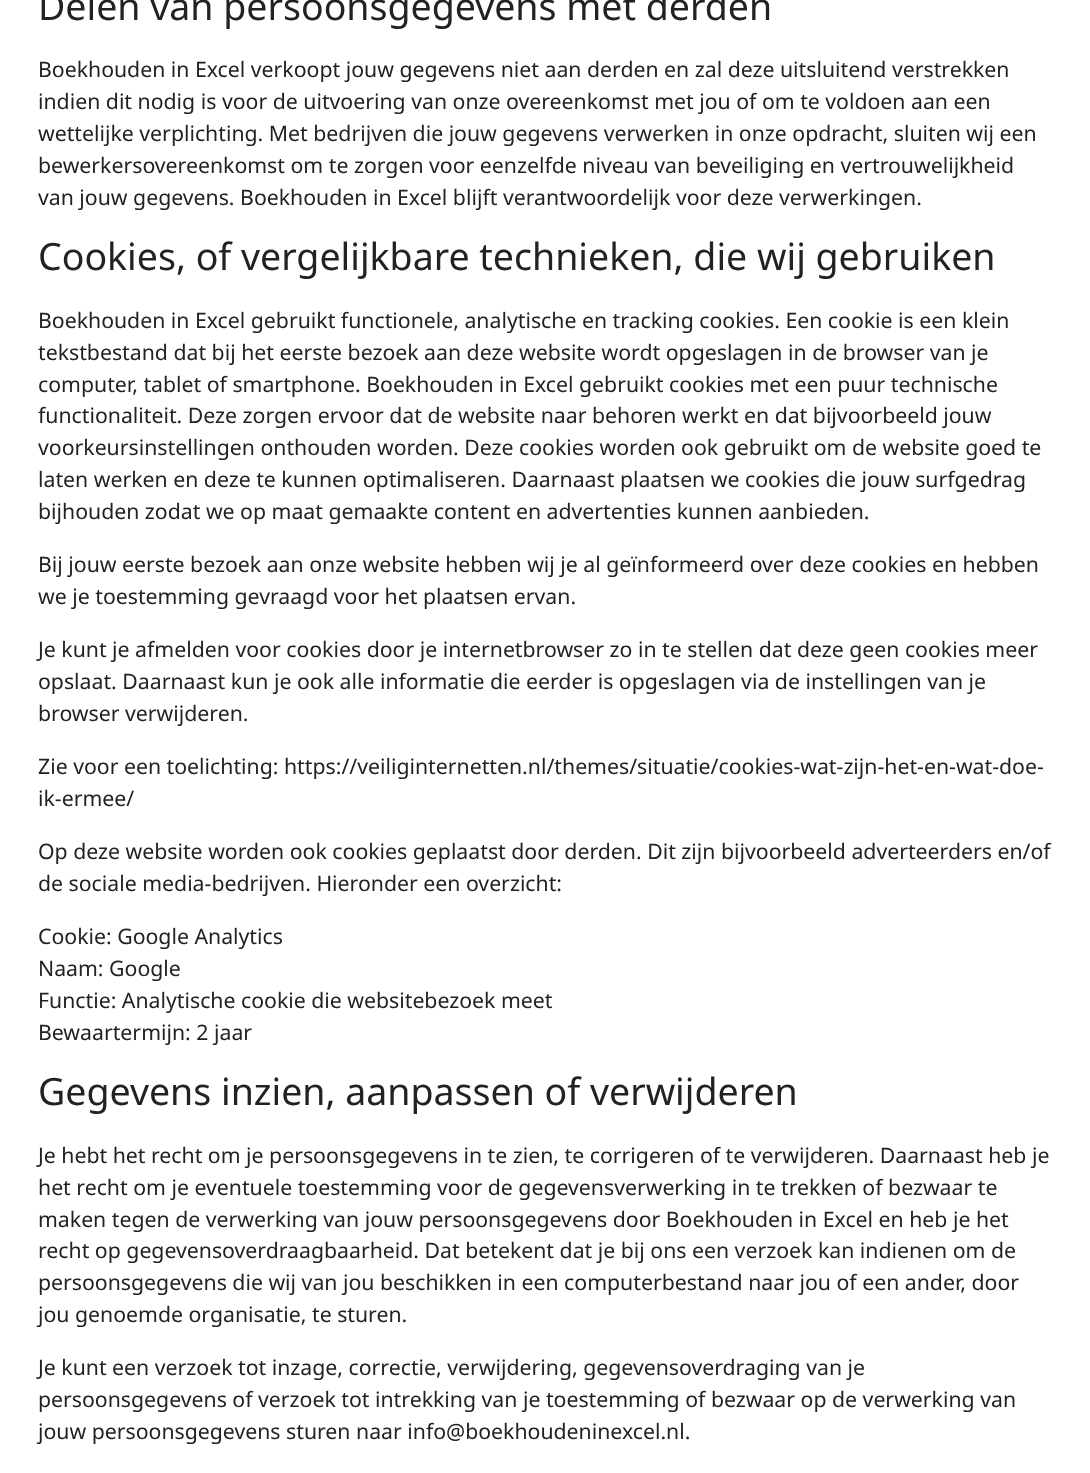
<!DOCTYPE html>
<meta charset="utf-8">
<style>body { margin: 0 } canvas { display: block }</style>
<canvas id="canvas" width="1090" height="1473"></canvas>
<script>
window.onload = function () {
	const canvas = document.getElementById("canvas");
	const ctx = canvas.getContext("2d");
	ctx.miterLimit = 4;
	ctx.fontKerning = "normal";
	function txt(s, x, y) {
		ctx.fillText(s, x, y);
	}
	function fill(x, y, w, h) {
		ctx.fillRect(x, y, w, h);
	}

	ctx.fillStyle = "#FFFFFF";
	fill(0, 0, 1090, 1473);
	ctx.font = "37.5px Noto Sans";
	ctx.fillStyle = "#222222";
	txt("Delen van persoonsgegevens met derden", 38, 20);
	ctx.font = "21.25px Noto Sans";
	txt("Boekhouden in Excel verkoopt jouw gegevens niet aan derden en zal deze uitsluitend verstrekken", 38, 77);
	txt("indien dit nodig is voor de uitvoering van onze overeenkomst met jou of om te voldoen aan een", 38, 109);
	txt("wettelijke verplichting. Met bedrijven die jouw gegevens verwerken in onze opdracht, sluiten wij een", 38, 141);
	txt("bewerkersovereenkomst om te zorgen voor eenzelfde niveau van beveiliging en vertrouwelijkheid", 38, 173);
	txt("van jouw gegevens. Boekhouden in Excel blijft verantwoordelijk voor deze verwerkingen.", 38, 205);
	ctx.font = "37.5px Noto Sans";
	txt("Cookies, of vergelijkbare technieken, die wij gebruiken", 38, 270);
	ctx.font = "21.25px Noto Sans";
	txt("Boekhouden in Excel gebruikt functionele, analytische en tracking cookies. Een cookie is een klein", 38, 328);
	txt("tekstbestand dat bij het eerste bezoek aan deze website wordt opgeslagen in de browser van je", 38, 360);
	txt("computer, tablet of smartphone. Boekhouden in Excel gebruikt cookies met een puur technische", 38, 392);
	txt("functionaliteit. Deze zorgen ervoor dat de website naar behoren werkt en dat bijvoorbeeld jouw", 38, 423);
	txt("voorkeursinstellingen onthouden worden. Deze cookies worden ook gebruikt om de website goed te", 38, 455);
	txt("laten werken en deze te kunnen optimaliseren. Daarnaast plaatsen we cookies die jouw surfgedrag", 38, 487);
	txt("bijhouden zodat we op maat gemaakte content en advertenties kunnen aanbieden.", 38, 519);
	txt("Bij jouw eerste bezoek aan onze website hebben wij je al geïnformeerd over deze cookies en hebben", 38, 572);
	txt("we je toestemming gevraagd voor het plaatsen ervan.", 38, 604);
	txt("Je kunt je afmelden voor cookies door je internetbrowser zo in te stellen dat deze geen cookies meer", 38, 657);
	txt("opslaat. Daarnaast kun je ook alle informatie die eerder is opgeslagen via de instellingen van je", 38, 689);
	txt("browser verwijderen.", 38, 721);
	txt("Zie voor een toelichting: https://veiliginternetten.nl/themes/situatie/cookies-wat-zijn-het-en-wat-doe-", 38, 774);
	txt("ik-ermee/", 38, 806);
	txt("Op deze website worden ook cookies geplaatst door derden. Dit zijn bijvoorbeeld adverteerders en/of", 38, 859);
	txt("de sociale media-bedrijven. Hieronder een overzicht:", 38, 891);
	txt("Cookie: Google Analytics", 38, 944);
	txt("Naam: Google", 38, 976);
	txt("Functie: Analytische cookie die websitebezoek meet", 38, 1008);
	txt("Bewaartermijn: 2 jaar", 38, 1040);
	ctx.font = "37.5px Noto Sans";
	txt("Gegevens inzien, aanpassen of verwijderen", 38, 1105);
	ctx.font = "21.25px Noto Sans";
	txt("Je hebt het recht om je persoonsgegevens in te zien, te corrigeren of te verwijderen. Daarnaast heb je", 38, 1163);
	txt("het recht om je eventuele toestemming voor de gegevensverwerking in te trekken of bezwaar te", 38, 1195);
	txt("maken tegen de verwerking van jouw persoonsgegevens door Boekhouden in Excel en heb je het", 38, 1227);
	txt("recht op gegevensoverdraagbaarheid. Dat betekent dat je bij ons een verzoek kan indienen om de", 38, 1258);
	txt("persoonsgegevens die wij van jou beschikken in een computerbestand naar jou of een ander, door", 38, 1290);
	txt("jou genoemde organisatie, te sturen.", 38, 1322);
	txt("Je kunt een verzoek tot inzage, correctie, verwijdering, gegevensoverdraging van je", 38, 1375);
	txt("persoonsgegevens of verzoek tot intrekking van je toestemming of bezwaar op de verwerking van", 38, 1407);
	txt("jouw persoonsgegevens sturen naar info@boekhoudeninexcel.nl.", 38, 1439);
};
</script>
